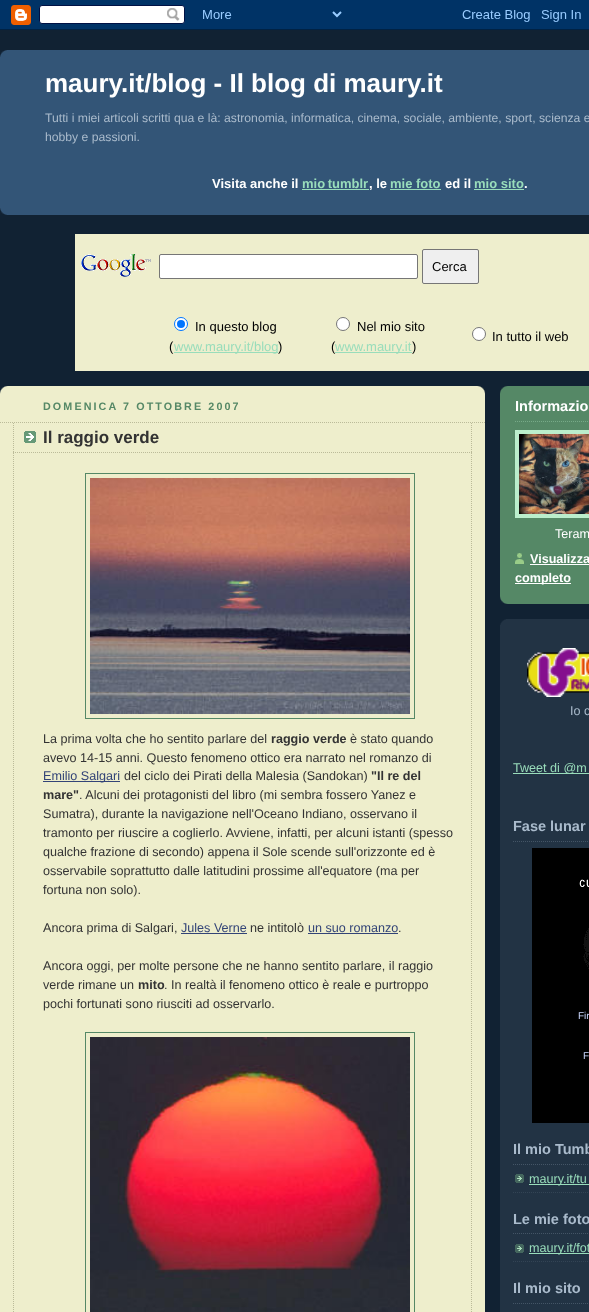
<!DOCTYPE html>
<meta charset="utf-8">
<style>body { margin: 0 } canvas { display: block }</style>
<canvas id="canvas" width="589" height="1312"></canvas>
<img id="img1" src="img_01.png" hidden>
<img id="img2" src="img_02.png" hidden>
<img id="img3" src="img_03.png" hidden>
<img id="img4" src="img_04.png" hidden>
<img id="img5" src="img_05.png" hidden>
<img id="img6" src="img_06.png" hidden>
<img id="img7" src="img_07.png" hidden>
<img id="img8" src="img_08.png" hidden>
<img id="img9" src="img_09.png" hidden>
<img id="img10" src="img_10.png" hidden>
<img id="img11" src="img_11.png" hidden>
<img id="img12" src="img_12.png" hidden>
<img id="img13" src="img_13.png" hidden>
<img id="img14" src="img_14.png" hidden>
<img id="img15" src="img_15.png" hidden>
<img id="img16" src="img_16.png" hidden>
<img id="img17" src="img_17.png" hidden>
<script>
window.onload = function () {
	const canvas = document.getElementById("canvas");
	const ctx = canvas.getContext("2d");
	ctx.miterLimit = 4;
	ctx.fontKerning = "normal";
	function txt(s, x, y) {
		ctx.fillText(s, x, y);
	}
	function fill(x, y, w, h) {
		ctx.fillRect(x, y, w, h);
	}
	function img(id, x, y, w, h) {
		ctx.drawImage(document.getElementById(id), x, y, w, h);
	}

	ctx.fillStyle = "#112233";
	fill(0, 0, 589, 1312);
	img("img1", 0, 0, 589, 30);
	ctx.fillStyle = "#335577";
	fill(0, 50, 589, 165);
	img("img2", 0, 208, 7, 7);
	img("img3", 0, 50, 7, 7);
	ctx.fillStyle = "#99DDBB";
	fill(302, 189, 67, 1);
	fill(390, 189, 51, 1);
	fill(474, 189, 50, 1);
	ctx.fillStyle = "#EEEECD";
	fill(75, 234, 514, 65);
	img("img4", 81, 254, 70, 23);
	ctx.fillStyle = "#FFFFFF";
	ctx.beginPath();
	ctx.roundRect(159.5, 254.5, 258, 24, 1.5);
	ctx.fill();
	ctx.strokeStyle = "#767676";
	ctx.stroke();
	ctx.fillStyle = "#EFEFEF";
	ctx.beginPath();
	ctx.roundRect(422.5, 249.5, 56, 34, 1.5);
	ctx.fill();
	ctx.stroke();
	ctx.fillStyle = "#EEEECD";
	fill(75, 299, 514, 72);
	ctx.fillStyle = "#FFFFFF";
	ctx.beginPath();
	ctx.arc(181, 324, 6.5, 0, Math.PI * 2);
	ctx.fill();
	ctx.strokeStyle = "#0075FF";
	ctx.stroke();
	ctx.fillStyle = "#0075FF";
	ctx.beginPath();
	ctx.arc(181, 324, 4, 0, Math.PI * 2);
	ctx.fill();
	ctx.fillStyle = "#99DDBB";
	fill(174, 352, 104, 1);
	ctx.fillStyle = "#FFFFFF";
	ctx.beginPath();
	ctx.arc(343, 324, 6.5, 0, Math.PI * 2);
	ctx.fill();
	ctx.strokeStyle = "#767676";
	ctx.stroke();
	ctx.beginPath();
	ctx.arc(479, 334, 6.5, 0, Math.PI * 2);
	ctx.fill();
	ctx.stroke();
	ctx.fillStyle = "#EEEECC";
	fill(0, 386, 485, 926);
	img("img5", 0, 386, 485, 8);
	ctx.beginPath();
	ctx.moveTo(0, 422.5);
	ctx.lineTo(485, 422.5);
	ctx.strokeStyle = "#BBBB99";
	ctx.setLineDash([1, 1]);
	ctx.stroke();
	img("img6", 24, 431, 12, 12);
	ctx.beginPath();
	ctx.moveTo(471.5, 423);
	ctx.lineTo(471.5, 453);
	ctx.stroke();
	ctx.beginPath();
	ctx.moveTo(13, 452.5);
	ctx.lineTo(472, 452.5);
	ctx.stroke();
	ctx.beginPath();
	ctx.moveTo(13.5, 423);
	ctx.lineTo(13.5, 453);
	ctx.stroke();
	ctx.beginPath();
	ctx.moveTo(471.5, 453);
	ctx.lineTo(471.5, 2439);
	ctx.stroke();
	ctx.beginPath();
	ctx.moveTo(13.5, 453);
	ctx.lineTo(13.5, 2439);
	ctx.stroke();
	ctx.strokeStyle = "#558866";
	ctx.setLineDash([]);
	ctx.strokeRect(85.5, 473.5, 329, 245);
	img("img7", 90, 478, 320, 236);
	ctx.fillStyle = "#334477";
	fill(43, 781, 77, 1);
	fill(181, 933, 66, 1);
	fill(308, 933, 90, 1);
	ctx.strokeRect(85.5, 1032.5, 329, 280);
	img("img8", 90, 1037, 320, 275);
	ctx.fillStyle = "#558866";
	fill(500, 386, 89, 218);
	img("img9", 500, 596, 8, 8);
	img("img10", 500, 386, 8, 8);
	ctx.beginPath();
	ctx.moveTo(515, 421.5);
	ctx.lineTo(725, 421.5);
	ctx.strokeStyle = "#77AA88";
	ctx.setLineDash([1, 1]);
	ctx.stroke();
	ctx.strokeStyle = "#BBEECC";
	ctx.lineWidth = 4;
	ctx.setLineDash([]);
	ctx.strokeRect(517, 432, 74, 84);
	img("img11", 519, 434, 70, 80);
	img("img12", 515, 553, 9, 11);
	ctx.fillStyle = "#FFFFFF";
	fill(530, 564, 59, 1);
	fill(515, 583, 56, 1);
	ctx.fillStyle = "#223344";
	fill(500, 619, 89, 693);
	img("img13", 500, 619, 6, 6);
	img("img14", 527, 648, 62, 49);
	ctx.fillStyle = "#99DDBB";
	fill(513, 773, 76, 1);
	ctx.beginPath();
	ctx.moveTo(513, 841.5);
	ctx.lineTo(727, 841.5);
	ctx.strokeStyle = "#445566";
	ctx.lineWidth = 1;
	ctx.setLineDash([1, 1]);
	ctx.stroke();
	ctx.fillStyle = "#000000";
	fill(532, 848, 57, 275);
	img("img15", 579, 879, 10, 8);
	img("img16", 583, 928, 6, 41);
	ctx.beginPath();
	ctx.moveTo(513, 1164.5);
	ctx.lineTo(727, 1164.5);
	ctx.stroke();
	img("img17", 515, 1174, 9, 9);
	ctx.beginPath();
	ctx.moveTo(513, 1192.5);
	ctx.lineTo(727, 1192.5);
	ctx.strokeStyle = "#334455";
	ctx.stroke();
	ctx.fillStyle = "#99DDBB";
	fill(529, 1184, 60, 1);
	ctx.beginPath();
	ctx.moveTo(513, 1233.5);
	ctx.lineTo(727, 1233.5);
	ctx.strokeStyle = "#445566";
	ctx.stroke();
	img("img17", 515, 1244, 9, 9);
	ctx.beginPath();
	ctx.moveTo(513, 1261.5);
	ctx.lineTo(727, 1261.5);
	ctx.strokeStyle = "#334455";
	ctx.stroke();
	fill(529, 1253, 60, 1);
	ctx.beginPath();
	ctx.moveTo(513, 1303.5);
	ctx.lineTo(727, 1303.5);
	ctx.strokeStyle = "#445566";
	ctx.stroke();
	ctx.font = "bold 26px Liberation Sans";
	ctx.fillStyle = "#FFFFFF";
	txt("maury.it/blog - Il blog di maury.it", 45, 92);
	ctx.font = "12.2px Liberation Sans";
	ctx.fillStyle = "#AABBCC";
	txt("Tutti i miei articoli scritti qua e là: astronomia, informatica, cinema, sociale, ambiente, sport, scienza e", 45, 122);
	txt("hobby e passioni.", 45, 141);
	ctx.font = "bold 13px Liberation Sans";
	ctx.fillStyle = "#FFFFFF";
	txt("Visita anche il", 212, 188);
	ctx.wordSpacing = "-1px";
	ctx.fillStyle = "#99DDBB";
	txt("mio tumblr", 302, 188);
	ctx.wordSpacing = "0px";
	ctx.fillStyle = "#FFFFFF";
	txt(", le", 369, 188);
	ctx.fillStyle = "#99DDBB";
	txt("mie foto", 390, 188);
	ctx.fillStyle = "#FFFFFF";
	txt("ed il", 445, 188);
	ctx.fillStyle = "#99DDBB";
	txt("mio sito", 474, 188);
	ctx.fillStyle = "#FFFFFF";
	txt(".", 524, 188);
	ctx.font = "13px Liberation Sans";
	ctx.fillStyle = "#000000";
	txt("Cerca", 432, 271);
	txt("In questo blog", 195, 331);
	txt("(", 169, 351);
	ctx.fillStyle = "#99DDBB";
	txt("www.maury.it/blog", 174, 351);
	ctx.fillStyle = "#000000";
	txt(")", 278, 351);
	txt("Nel mio sito", 357, 331);
	txt("(", 331, 351);
	ctx.fillStyle = "#99DDBB";
	fill(335, 352, 77, 1);
	txt("www.maury.it", 335, 351);
	ctx.fillStyle = "#000000";
	txt(")", 412, 351);
	txt("In tutto il web", 492, 341);
	ctx.letterSpacing = "2.1px";
	ctx.font = "bold 10.75px Liberation Sans";
	ctx.fillStyle = "#558866";
	txt("DOMENICA 7 OTTOBRE 2007", 43, 410);
	ctx.letterSpacing = "0px";
	ctx.font = "bold 17px Liberation Sans";
	ctx.fillStyle = "#333333";
	txt("Il raggio verde", 43, 443);
	ctx.font = "12.6px Liberation Sans";
	txt("La prima volta che ho sentito parlare del", 43, 743);
	ctx.font = "bold 12.6px Liberation Sans";
	txt("raggio verde", 271, 743);
	ctx.font = "12.6px Liberation Sans";
	txt("è stato quando", 350, 743);
	txt("avevo 14-15 anni. Questo fenomeno ottico era narrato nel romanzo di", 43, 762);
	ctx.fillStyle = "#334477";
	txt("Emilio Salgari", 43, 780);
	ctx.fillStyle = "#333333";
	txt("del ciclo dei Pirati della Malesia (Sandokan)", 124, 780);
	ctx.font = "bold 12.6px Liberation Sans";
	txt("\"Il re del", 371, 780);
	txt("mare\"", 43, 799);
	ctx.font = "12.6px Liberation Sans";
	txt(". Alcuni dei protagonisti del libro (mi sembra fossero Yanez e", 79, 799);
	txt("Sumatra), durante la navigazione nell'Oceano Indiano, osservano il", 43, 818);
	txt("tramonto per riuscire a coglierlo. Avviene, infatti, per alcuni istanti (spesso", 43, 837);
	txt("qualche frazione di secondo) appena il Sole scende sull'orizzonte ed è", 43, 856);
	txt("osservabile soprattutto dalle latitudini prossime all'equatore (ma per", 43, 875);
	txt("fortuna non solo).", 43, 894);
	txt("Ancora prima di Salgari,", 43, 932);
	ctx.fillStyle = "#334477";
	txt("Jules Verne", 181, 932);
	ctx.fillStyle = "#333333";
	txt("ne intitolò", 250, 932);
	ctx.fillStyle = "#334477";
	txt("un suo romanzo", 308, 932);
	ctx.fillStyle = "#333333";
	txt(".", 398, 932);
	txt("Ancora oggi, per molte persone che ne hanno sentito parlare, il raggio", 43, 970);
	txt("verde rimane un", 43, 989);
	ctx.font = "bold 12.6px Liberation Sans";
	txt("mito", 138, 989);
	ctx.font = "12.6px Liberation Sans";
	txt(". In realtà il fenomeno ottico è reale e purtroppo", 164, 989);
	txt("pochi fortunati sono riusciti ad osservarlo.", 43, 1008);
	ctx.font = "bold 14.5px Liberation Sans";
	ctx.fillStyle = "#FFFFFF";
	txt("Informazio", 515, 411);
	ctx.font = "12.6px Liberation Sans";
	txt("Teram", 555, 538);
	ctx.font = "bold 12.6px Liberation Sans";
	txt("Visualizza", 530, 563);
	txt("completo", 515, 582);
	ctx.font = "12.6px Liberation Sans";
	ctx.fillStyle = "#AABBCC";
	txt("Io c", 570, 715);
	ctx.fillStyle = "#99DDBB";
	txt("Tweet di @m", 513, 772);
	ctx.font = "bold 14.5px Liberation Sans";
	ctx.fillStyle = "#AABBCC";
	txt("Fase lunar", 513, 831);
	ctx.font = "10px Liberation Sans";
	ctx.fillStyle = "#CCD9FF";
	txt("Fir", 578, 1019);
	txt("F", 583, 1059);
	ctx.font = "bold 14.5px Liberation Sans";
	ctx.fillStyle = "#AABBCC";
	txt("Il mio Tumb", 513, 1154);
	ctx.font = "12.6px Liberation Sans";
	ctx.fillStyle = "#99DDBB";
	txt("maury.it/tu", 529, 1183);
	ctx.font = "bold 14.5px Liberation Sans";
	ctx.fillStyle = "#AABBCC";
	txt("Le mie foto", 513, 1224);
	ctx.font = "12.6px Liberation Sans";
	ctx.fillStyle = "#99DDBB";
	txt("maury.it/fot", 529, 1252);
	ctx.font = "bold 14.5px Liberation Sans";
	ctx.fillStyle = "#AABBCC";
	txt("Il mio sito", 513, 1293);
};
</script>
